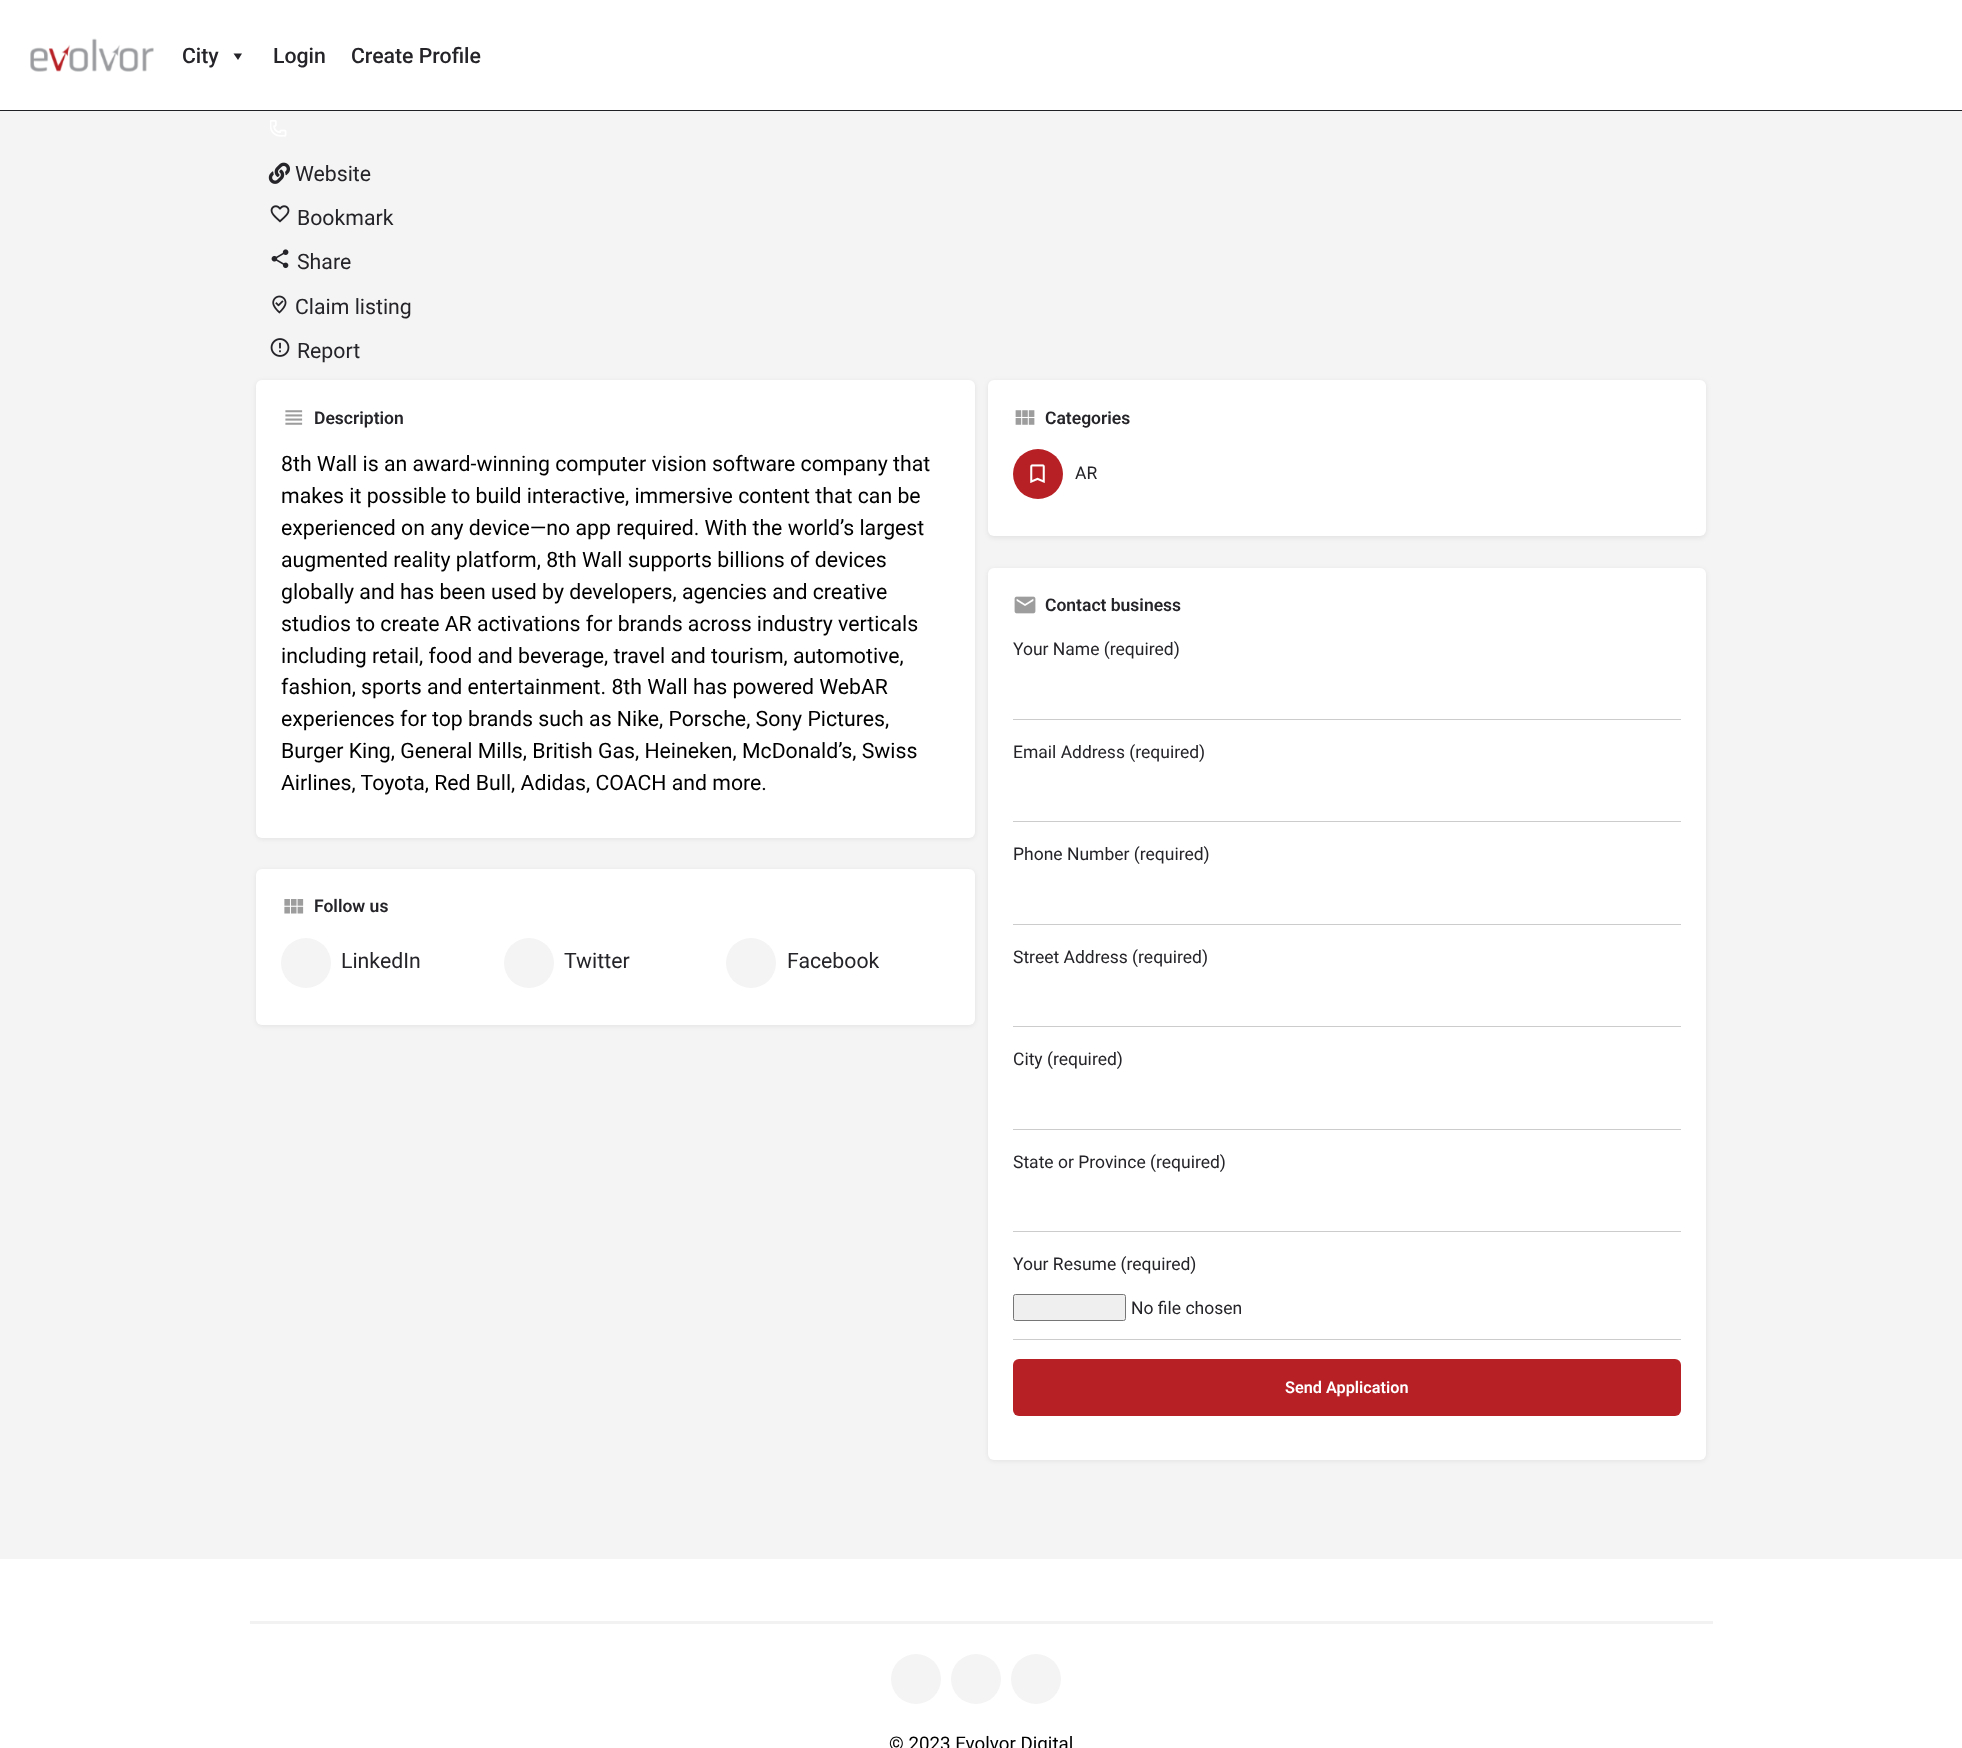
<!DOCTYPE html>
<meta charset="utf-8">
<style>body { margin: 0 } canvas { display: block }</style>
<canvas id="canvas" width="1962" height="1748"></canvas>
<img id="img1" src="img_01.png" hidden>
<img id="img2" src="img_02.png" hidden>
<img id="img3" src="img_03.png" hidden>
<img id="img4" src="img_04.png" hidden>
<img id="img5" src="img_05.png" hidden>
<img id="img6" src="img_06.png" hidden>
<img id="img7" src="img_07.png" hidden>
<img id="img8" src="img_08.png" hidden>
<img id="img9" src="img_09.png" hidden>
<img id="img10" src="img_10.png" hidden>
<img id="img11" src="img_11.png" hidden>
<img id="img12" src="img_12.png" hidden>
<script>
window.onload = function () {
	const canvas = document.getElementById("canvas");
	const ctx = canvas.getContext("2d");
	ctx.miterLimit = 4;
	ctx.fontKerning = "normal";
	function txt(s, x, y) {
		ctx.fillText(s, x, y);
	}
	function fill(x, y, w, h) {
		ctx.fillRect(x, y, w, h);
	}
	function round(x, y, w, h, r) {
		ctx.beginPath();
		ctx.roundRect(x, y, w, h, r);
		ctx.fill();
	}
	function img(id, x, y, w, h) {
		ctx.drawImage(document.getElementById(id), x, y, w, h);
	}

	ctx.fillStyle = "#F4F4F4";
	fill(0, 0, 1962, 1748);
	ctx.fillStyle = "#FFFFFF";
	fill(0, 0, 1962, 110);
	ctx.fillStyle = "#202125";
	fill(0, 110, 1962, 1);
	img("img1", 30, 38, 124, 34);
	ctx.fillStyle = "#242429";
	ctx.beginPath();
	ctx.moveTo(242, 53.5);
	ctx.lineTo(238, 60);
	ctx.lineTo(233.5, 53.5);
	ctx.closePath();
	ctx.fill();
	img("img2", 270, 120, 17, 17);
	img("img3", 268, 162, 22, 22);
	img("img4", 270, 205, 20, 18);
	img("img5", 271, 249, 18, 20);
	img("img6", 272, 295, 15, 19);
	img("img7", 270, 338, 20, 19);
	ctx.fillStyle = "rgba(0, 0, 0, 0.07)";
	ctx.filter = "blur(2.5px)";
	ctx.beginPath();
	ctx.roundRect(256, 381, 719, 458, 6);
	ctx.fill();
	ctx.filter = "none";
	ctx.fillStyle = "#FFFFFF";
	round(256, 380, 719, 458, 6);
	img("img8", 285, 410, 18, 15);
	ctx.fillStyle = "rgba(0, 0, 0, 0.07)";
	ctx.filter = "blur(2.5px)";
	ctx.beginPath();
	ctx.roundRect(256, 870, 719, 156, 6);
	ctx.fill();
	ctx.filter = "none";
	ctx.fillStyle = "#FFFFFF";
	round(256, 869, 719, 156, 6);
	img("img9", 284, 899, 20, 15);
	ctx.fillStyle = "#F4F4F4";
	ctx.beginPath();
	ctx.arc(306, 963, 25, 0, Math.PI * 2);
	ctx.fill();
	ctx.beginPath();
	ctx.arc(529, 963, 25, 0, Math.PI * 2);
	ctx.fill();
	ctx.beginPath();
	ctx.arc(751, 963, 25, 0, Math.PI * 2);
	ctx.fill();
	ctx.fillStyle = "rgba(0, 0, 0, 0.07)";
	ctx.filter = "blur(2.5px)";
	ctx.beginPath();
	ctx.roundRect(988, 381, 718, 157, 6);
	ctx.fill();
	ctx.filter = "none";
	ctx.fillStyle = "#FFFFFF";
	round(988, 380, 718, 156, 6);
	img("img10", 1015, 410, 20, 15);
	ctx.fillStyle = "#B72025";
	ctx.beginPath();
	ctx.arc(1038, 474, 25, 0, Math.PI * 2);
	ctx.fill();
	img("img11", 1030, 464, 15, 19);
	ctx.fillStyle = "rgba(0, 0, 0, 0.07)";
	ctx.filter = "blur(2.5px)";
	ctx.beginPath();
	ctx.roundRect(988, 569, 718, 892, 6);
	ctx.fill();
	ctx.filter = "none";
	ctx.fillStyle = "#FFFFFF";
	round(988, 568, 718, 892, 6);
	img("img12", 1014, 596, 22, 18);
	ctx.fillStyle = "#CCCCCC";
	fill(1013, 719, 668, 1);
	fill(1013, 821, 668, 1);
	fill(1013, 924, 668, 1);
	fill(1013, 1026, 668, 1);
	fill(1013, 1129, 668, 1);
	fill(1013, 1231, 668, 1);
	fill(1013, 1339, 668, 1);
	ctx.fillStyle = "#EFEFEF";
	ctx.beginPath();
	ctx.roundRect(1013.5, 1294.5, 112, 26, 2);
	ctx.fill();
	ctx.strokeStyle = "#767676";
	ctx.stroke();
	ctx.fillStyle = "#B72025";
	round(1013, 1359, 668, 57, 6);
	ctx.fillStyle = "#FFFFFF";
	fill(0, 1559, 1962, 189);
	ctx.fillStyle = "#F2F2F2";
	fill(250, 1621, 1463, 3);
	ctx.fillStyle = "#F4F4F4";
	ctx.beginPath();
	ctx.arc(916, 1679, 25, 0, Math.PI * 2);
	ctx.fill();
	ctx.beginPath();
	ctx.arc(976, 1679, 25, 0, Math.PI * 2);
	ctx.fill();
	ctx.beginPath();
	ctx.arc(1036, 1679, 25, 0, Math.PI * 2);
	ctx.fill();
	ctx.font = "500 21.25px Roboto";
	ctx.fillStyle = "#242429";
	txt("City", 182, 63);
	txt("Login", 273, 63);
	txt("Create Profile", 351, 63);
	ctx.font = "21.25px Roboto";
	txt("Website", 295, 181);
	txt("Bookmark", 297, 225);
	txt("Share", 297, 269);
	txt("Claim listing", 295, 314);
	txt("Report", 297, 358);
	ctx.font = "600 17.5px Roboto";
	txt("Description", 314, 424);
	ctx.font = "21.25px Roboto";
	ctx.fillStyle = "#000000";
	txt("8th Wall is an award-winning computer vision software company that", 281, 471);
	txt("makes it possible to build interactive, immersive content that can be", 281, 503);
	txt("experienced on any device—no app required. With the world’s largest", 281, 535);
	txt("augmented reality platform, 8th Wall supports billions of devices", 281, 567);
	txt("globally and has been used by developers, agencies and creative", 281, 599);
	txt("studios to create AR activations for brands across industry verticals", 281, 631);
	txt("including retail, food and beverage, travel and tourism, automotive,", 281, 663);
	txt("fashion, sports and entertainment. 8th Wall has powered WebAR", 281, 694);
	txt("experiences for top brands such as Nike, Porsche, Sony Pictures,", 281, 726);
	txt("Burger King, General Mills, British Gas, Heineken, McDonald’s, Swiss", 281, 758);
	txt("Airlines, Toyota, Red Bull, Adidas, COACH and more.", 281, 790);
	ctx.font = "600 17.5px Roboto";
	ctx.fillStyle = "#242429";
	txt("Follow us", 314, 912);
	ctx.font = "21.25px Roboto";
	txt("LinkedIn", 341, 968);
	txt("Twitter", 564, 968);
	txt("Facebook", 787, 968);
	ctx.font = "600 17.5px Roboto";
	txt("Categories", 1045, 424);
	ctx.font = "17.5px Roboto";
	txt("AR", 1075, 479);
	ctx.font = "600 17.5px Roboto";
	txt("Contact business", 1045, 611);
	ctx.font = "17.5px Roboto";
	txt("Your Name (required)", 1013, 655);
	txt("Email Address (required)", 1013, 758);
	txt("Phone Number (required)", 1013, 860);
	txt("Street Address (required)", 1013, 963);
	txt("City (required)", 1013, 1065);
	txt("State or Province (required)", 1013, 1168);
	txt("Your Resume (required)", 1013, 1270);
	txt("No file chosen", 1131, 1314);
	ctx.font = "600 16.25px Roboto";
	ctx.fillStyle = "#FFFFFF";
	txt("Send Application", 1285, 1393);
	ctx.font = "18.75px Roboto";
	ctx.fillStyle = "#000000";
	txt("© 2023 Evolvor Digital", 889, 1750);
};
</script>
